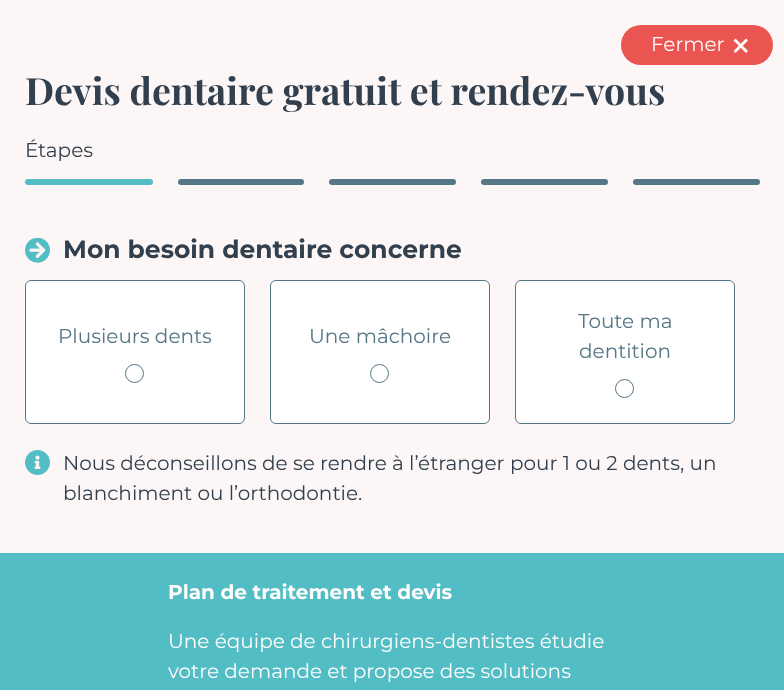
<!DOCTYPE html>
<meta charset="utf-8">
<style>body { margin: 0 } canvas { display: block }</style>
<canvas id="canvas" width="784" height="690"></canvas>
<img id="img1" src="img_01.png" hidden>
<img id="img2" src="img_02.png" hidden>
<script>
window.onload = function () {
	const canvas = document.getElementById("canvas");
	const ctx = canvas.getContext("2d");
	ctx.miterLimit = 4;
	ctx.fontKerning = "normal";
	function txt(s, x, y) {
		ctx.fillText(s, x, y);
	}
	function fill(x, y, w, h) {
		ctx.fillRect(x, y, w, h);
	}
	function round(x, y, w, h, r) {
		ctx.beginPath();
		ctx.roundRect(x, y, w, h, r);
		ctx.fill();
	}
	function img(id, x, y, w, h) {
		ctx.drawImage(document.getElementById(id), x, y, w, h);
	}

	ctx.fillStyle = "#FCF7F6";
	fill(0, 0, 784, 690);
	ctx.fillStyle = "#EA5551";
	round(621, 25, 152, 40, 20);
	ctx.fillStyle = "#FEFDFC";
	ctx.beginPath();
	ctx.moveTo(735.5, 38.5);
	ctx.lineTo(748, 51);
	ctx.lineTo(746, 53);
	ctx.lineTo(733.5, 40.5);
	ctx.closePath();
	ctx.fill();
	ctx.beginPath();
	ctx.moveTo(748, 40.5);
	ctx.lineTo(735.5, 53);
	ctx.lineTo(733.5, 51);
	ctx.lineTo(746, 38.5);
	ctx.closePath();
	ctx.fill();
	ctx.fillStyle = "#52BDC5";
	round(25, 179, 128, 6, 3);
	ctx.fillStyle = "#547685";
	round(178, 179, 126, 6, 3);
	round(329, 179, 127, 6, 3);
	round(481, 179, 127, 6, 3);
	round(633, 179, 127, 6, 3);
	img("img1", 25, 238, 25, 25);
	ctx.fillStyle = "#FFFFFF";
	ctx.beginPath();
	ctx.roundRect(25.5, 280.5, 219, 143, 5.5);
	ctx.fill();
	ctx.strokeStyle = "#547685";
	ctx.stroke();
	ctx.beginPath();
	ctx.arc(134.5, 373.5, 9, 0, Math.PI * 2);
	ctx.stroke();
	ctx.beginPath();
	ctx.roundRect(270.5, 280.5, 219, 143, 5.5);
	ctx.fill();
	ctx.stroke();
	ctx.beginPath();
	ctx.arc(379.5, 373.5, 9, 0, Math.PI * 2);
	ctx.stroke();
	ctx.beginPath();
	ctx.roundRect(515.5, 280.5, 219, 143, 5.5);
	ctx.fill();
	ctx.stroke();
	ctx.beginPath();
	ctx.arc(624.5, 388.5, 9, 0, Math.PI * 2);
	ctx.stroke();
	img("img2", 25, 450, 25, 25);
	ctx.fillStyle = "#52BDC5";
	fill(0, 553, 784, 137);
	ctx.font = "20px Montserrat";
	ctx.fillStyle = "#FEFDFC";
	txt("Fermer", 651, 51);
	ctx.font = "bold 37.5px Playfair Display";
	ctx.fillStyle = "#313F4E";
	txt("Devis dentaire gratuit et rendez-vous", 25, 105);
	ctx.font = "20px Montserrat";
	txt("Étapes", 25, 157);
	ctx.font = "bold 25px Montserrat";
	txt("Mon besoin dentaire concerne", 63, 258);
	ctx.font = "20px Montserrat";
	ctx.fillStyle = "#547685";
	txt("Plusieurs dents", 58, 343);
	txt("Une mâchoire", 309, 343);
	txt("Toute ma", 578, 328);
	txt("dentition", 579, 358);
	ctx.fillStyle = "#313F4E";
	txt("Nous déconseillons de se rendre à l’étranger pour 1 ou 2 dents, un", 63, 470);
	txt("blanchiment ou l’orthodontie.", 63, 500);
	ctx.font = "bold 20px Montserrat";
	ctx.fillStyle = "#FEFDFC";
	txt("Plan de traitement et devis", 168, 599);
	ctx.font = "20px Montserrat";
	txt("Une équipe de chirurgiens-dentistes étudie", 168, 648);
	txt("votre demande et propose des solutions", 168, 678);
};
</script>
